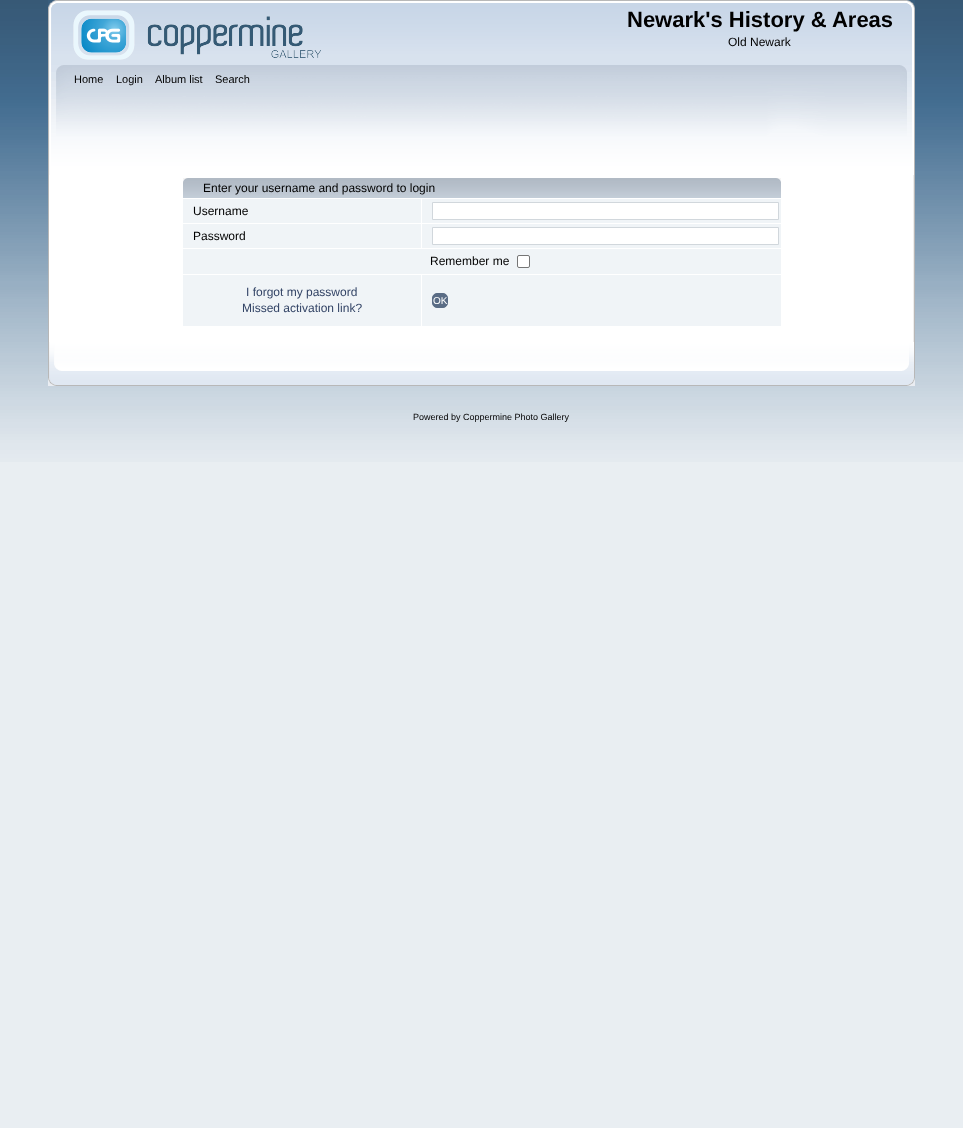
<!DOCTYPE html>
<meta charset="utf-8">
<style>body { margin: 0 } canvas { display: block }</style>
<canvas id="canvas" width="963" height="1128"></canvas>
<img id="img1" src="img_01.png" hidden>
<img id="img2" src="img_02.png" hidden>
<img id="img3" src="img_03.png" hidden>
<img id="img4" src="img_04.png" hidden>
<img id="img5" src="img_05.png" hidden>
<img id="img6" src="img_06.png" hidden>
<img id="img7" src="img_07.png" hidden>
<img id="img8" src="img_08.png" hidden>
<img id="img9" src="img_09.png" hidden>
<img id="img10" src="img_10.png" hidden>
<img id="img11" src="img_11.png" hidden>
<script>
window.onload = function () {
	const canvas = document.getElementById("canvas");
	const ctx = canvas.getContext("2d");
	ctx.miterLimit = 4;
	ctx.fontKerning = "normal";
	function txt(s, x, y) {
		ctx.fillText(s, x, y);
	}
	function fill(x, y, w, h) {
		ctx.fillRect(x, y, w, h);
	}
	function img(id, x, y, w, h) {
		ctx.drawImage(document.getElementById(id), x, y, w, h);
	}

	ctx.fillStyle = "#E9EEF2";
	fill(0, 0, 963, 1128);
	img("img1", 0, 0, 963, 462);
	img("img2", 48, 0, 859, 65);
	img("img3", 907, 0, 8, 65);
	img("img4", 73, 10, 248, 50);
	img("img5", 48, 65, 852, 110);
	img("img6", 900, 65, 15, 110);
	ctx.fillStyle = "#FFFFFF";
	fill(49, 175, 864, 167);
	ctx.fillStyle = "#B7B7B7";
	fill(48, 175, 1, 167);
	img("img7", 913, 175, 2, 167);
	img("img8", 183, 178, 598, 20);
	img("img9", 776, 178, 5, 4);
	ctx.fillStyle = "#F0F4F7";
	fill(183, 199, 238, 24);
	fill(422, 199, 359, 24);
	ctx.fillStyle = "#FFFFFF";
	ctx.beginPath();
	ctx.rect(432.5, 202.5, 346, 17);
	ctx.fill();
	ctx.strokeStyle = "#D1D7DC";
	ctx.stroke();
	ctx.fillStyle = "#F0F4F7";
	fill(183, 224, 238, 24);
	fill(422, 224, 359, 24);
	ctx.fillStyle = "#FFFFFF";
	ctx.beginPath();
	ctx.rect(432.5, 227.5, 346, 17);
	ctx.fill();
	ctx.stroke();
	ctx.fillStyle = "#F0F4F7";
	fill(183, 249, 598, 25);
	ctx.fillStyle = "#FFFFFF";
	ctx.beginPath();
	ctx.roundRect(517.5, 255.5, 12, 12, 1.5);
	ctx.fill();
	ctx.strokeStyle = "#767676";
	ctx.stroke();
	ctx.fillStyle = "#F0F4F7";
	fill(183, 275, 238, 51);
	fill(422, 275, 359, 51);
	ctx.fillStyle = "#5A6C85";
	ctx.beginPath();
	ctx.roundRect(432.5, 293.5, 15, 14, 4.5);
	ctx.fill();
	ctx.strokeStyle = "#5A6C85";
	ctx.stroke();
	img("img10", 48, 342, 854, 44);
	img("img11", 902, 342, 13, 44);
	ctx.font = "bold 22px Liberation Sans";
	ctx.fillStyle = "#000000";
	txt("Newark's History & Areas", 627, 27);
	ctx.font = "12px Liberation Sans";
	txt("Old Newark", 728, 46);
	ctx.font = "11px Liberation Sans";
	txt("Home", 74, 83);
	txt("Login", 116, 83);
	txt("Album list", 155, 83);
	txt("Search", 215, 83);
	ctx.font = "12px Liberation Sans";
	txt("Enter your username and password to login", 203, 192);
	txt("Username", 193, 215);
	txt("Password", 193, 240);
	txt("Remember me", 430, 265);
	ctx.fillStyle = "#334466";
	txt("I forgot my password", 246, 296);
	txt("Missed activation link?", 242, 312);
	ctx.font = "10px Liberation Sans";
	ctx.fillStyle = "#FFFFFF";
	txt("OK", 433, 304);
	ctx.font = "9px Liberation Sans";
	ctx.fillStyle = "#000000";
	txt("Powered by Coppermine Photo Gallery", 413, 420);
};
</script>
